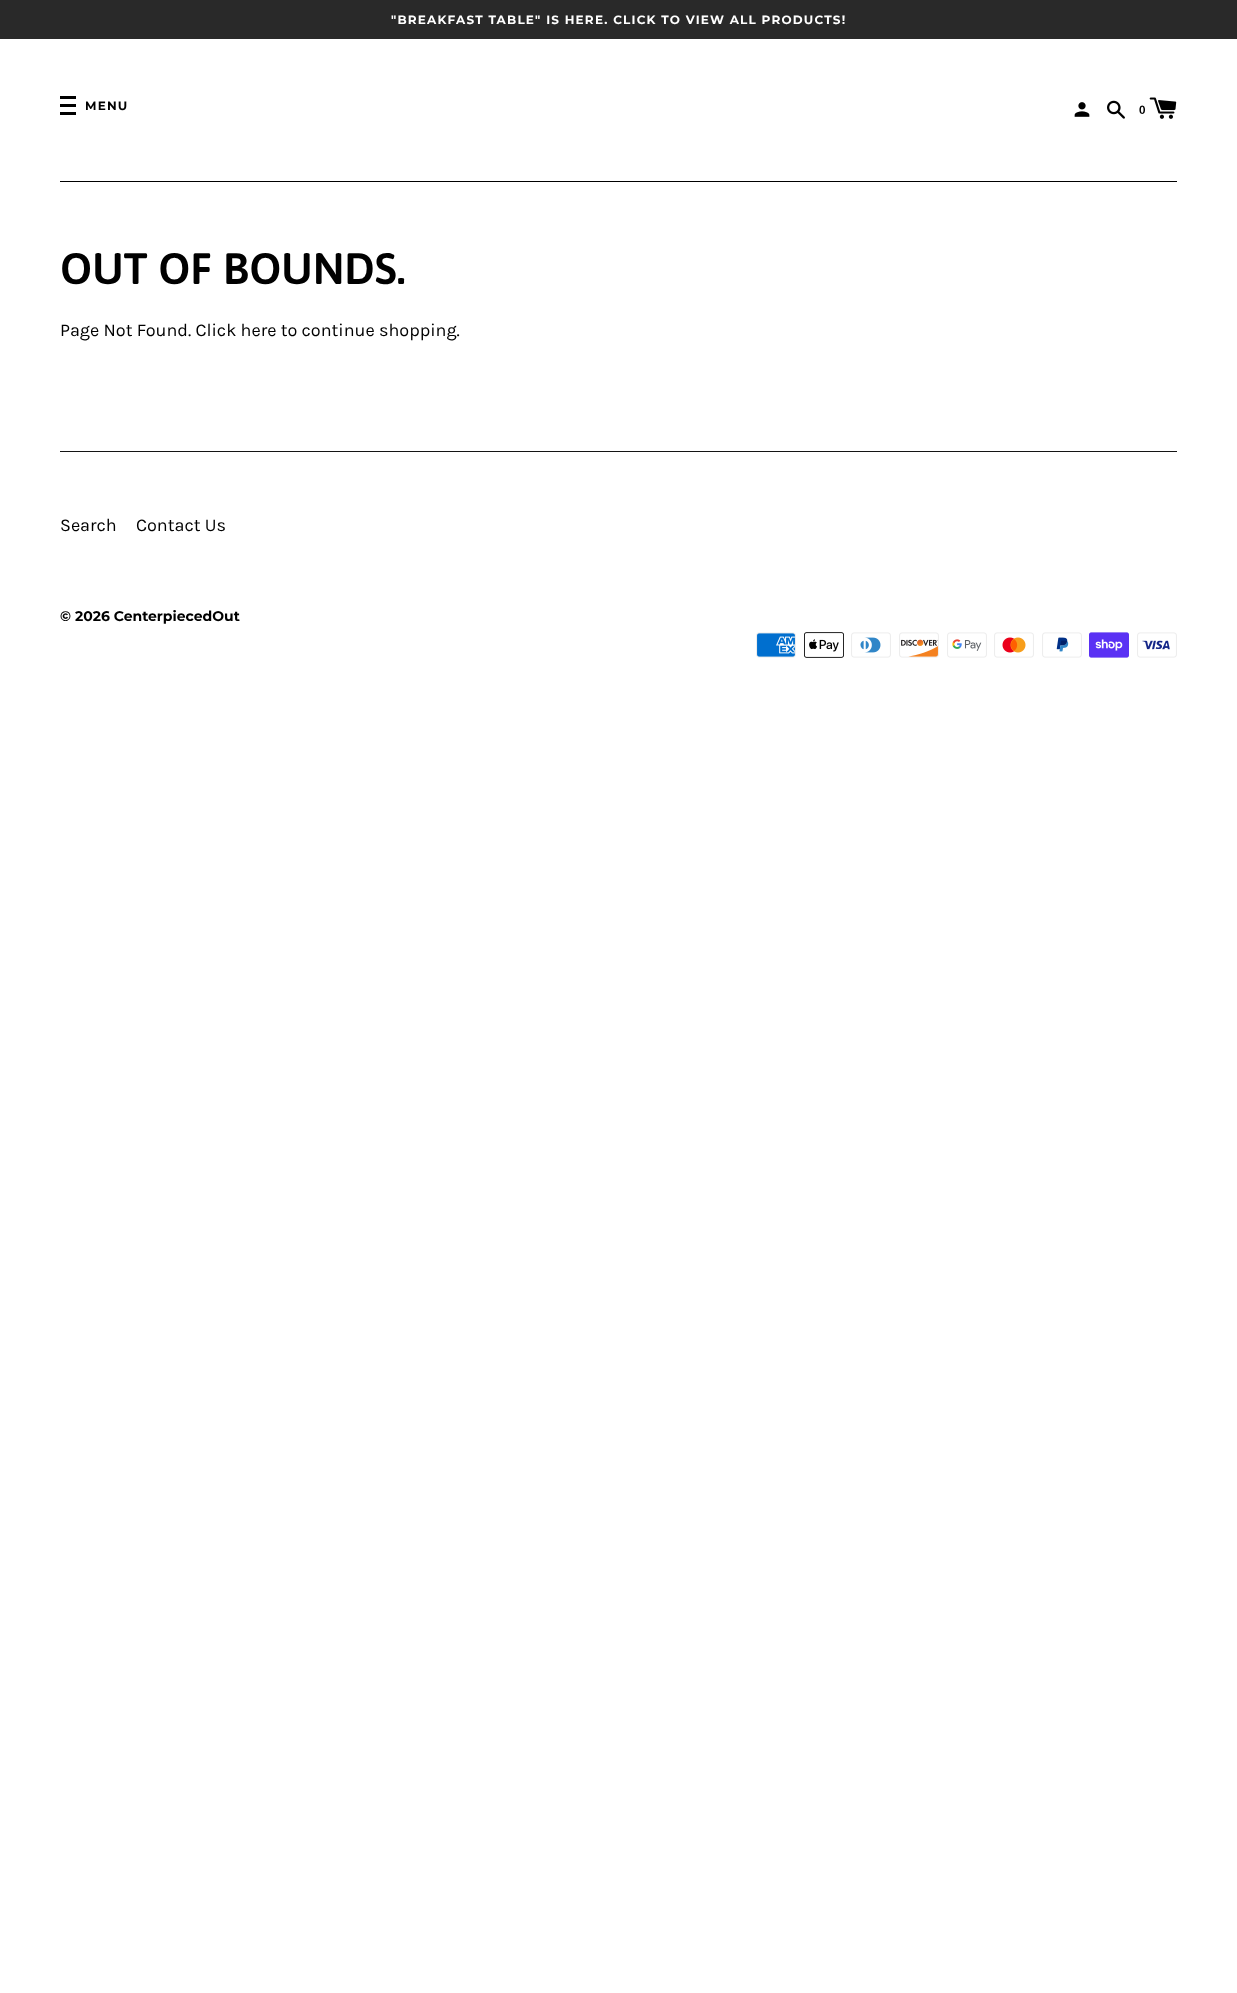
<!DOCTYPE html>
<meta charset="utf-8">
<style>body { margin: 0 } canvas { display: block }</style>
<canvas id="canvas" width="1237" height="1993"></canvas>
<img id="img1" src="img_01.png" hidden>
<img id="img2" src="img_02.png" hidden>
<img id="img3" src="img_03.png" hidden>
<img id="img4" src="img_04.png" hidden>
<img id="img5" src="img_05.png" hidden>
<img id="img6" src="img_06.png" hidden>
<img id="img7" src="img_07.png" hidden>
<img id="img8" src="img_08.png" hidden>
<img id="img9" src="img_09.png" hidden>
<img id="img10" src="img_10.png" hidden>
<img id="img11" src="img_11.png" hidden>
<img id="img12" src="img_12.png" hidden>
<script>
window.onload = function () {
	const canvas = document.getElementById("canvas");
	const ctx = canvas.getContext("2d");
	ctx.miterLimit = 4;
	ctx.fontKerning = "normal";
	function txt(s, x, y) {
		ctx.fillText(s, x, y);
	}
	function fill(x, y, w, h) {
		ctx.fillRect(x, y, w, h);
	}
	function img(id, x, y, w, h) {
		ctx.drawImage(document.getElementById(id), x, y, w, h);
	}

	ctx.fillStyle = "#FFFFFF";
	fill(0, 0, 1237, 1993);
	ctx.fillStyle = "#292929";
	fill(0, 0, 1237, 39);
	ctx.fillStyle = "#000000";
	fill(60, 181, 1117, 1);
	fill(60, 96, 16, 3);
	fill(60, 104, 16, 3);
	fill(60, 112, 16, 3);
	img("img1", 1074, 102, 16, 15);
	img("img2", 1107, 100, 18, 19);
	img("img3", 1149, 97, 28, 22);
	ctx.fillStyle = "#141414";
	fill(60, 451, 1117, 1);
	img("img4", 756, 632, 40, 26);
	img("img5", 804, 632, 40, 26);
	img("img6", 851, 632, 40, 26);
	img("img7", 899, 632, 40, 26);
	img("img8", 947, 632, 40, 26);
	img("img9", 994, 632, 40, 26);
	img("img10", 1042, 632, 40, 26);
	img("img11", 1089, 632, 40, 26);
	img("img12", 1137, 632, 40, 26);
	ctx.letterSpacing = "1.2px";
	ctx.font = "bold 12px Montserrat";
	ctx.fillStyle = "#FFFFFF";
	txt("\"BREAKFAST TABLE\" IS HERE. CLICK TO VIEW ALL PRODUCTS!", 391, 24);
	ctx.fillStyle = "#000000";
	txt("MENU", 85, 110);
	ctx.letterSpacing = "0px";
	ctx.font = "600 12px Asap";
	txt("0", 1139, 114);
	ctx.font = "600 44px Asap";
	txt("OUT OF BOUNDS.", 60, 284);
	ctx.font = "18px Karla";
	txt("Page Not Found. Click here to continue shopping.", 60, 336);
	txt("Search", 60, 531);
	txt("Contact Us", 136, 531);
	ctx.font = "bold 14px Montserrat";
	txt("© 2026 CenterpiecedOut", 60, 621);
};
</script>
